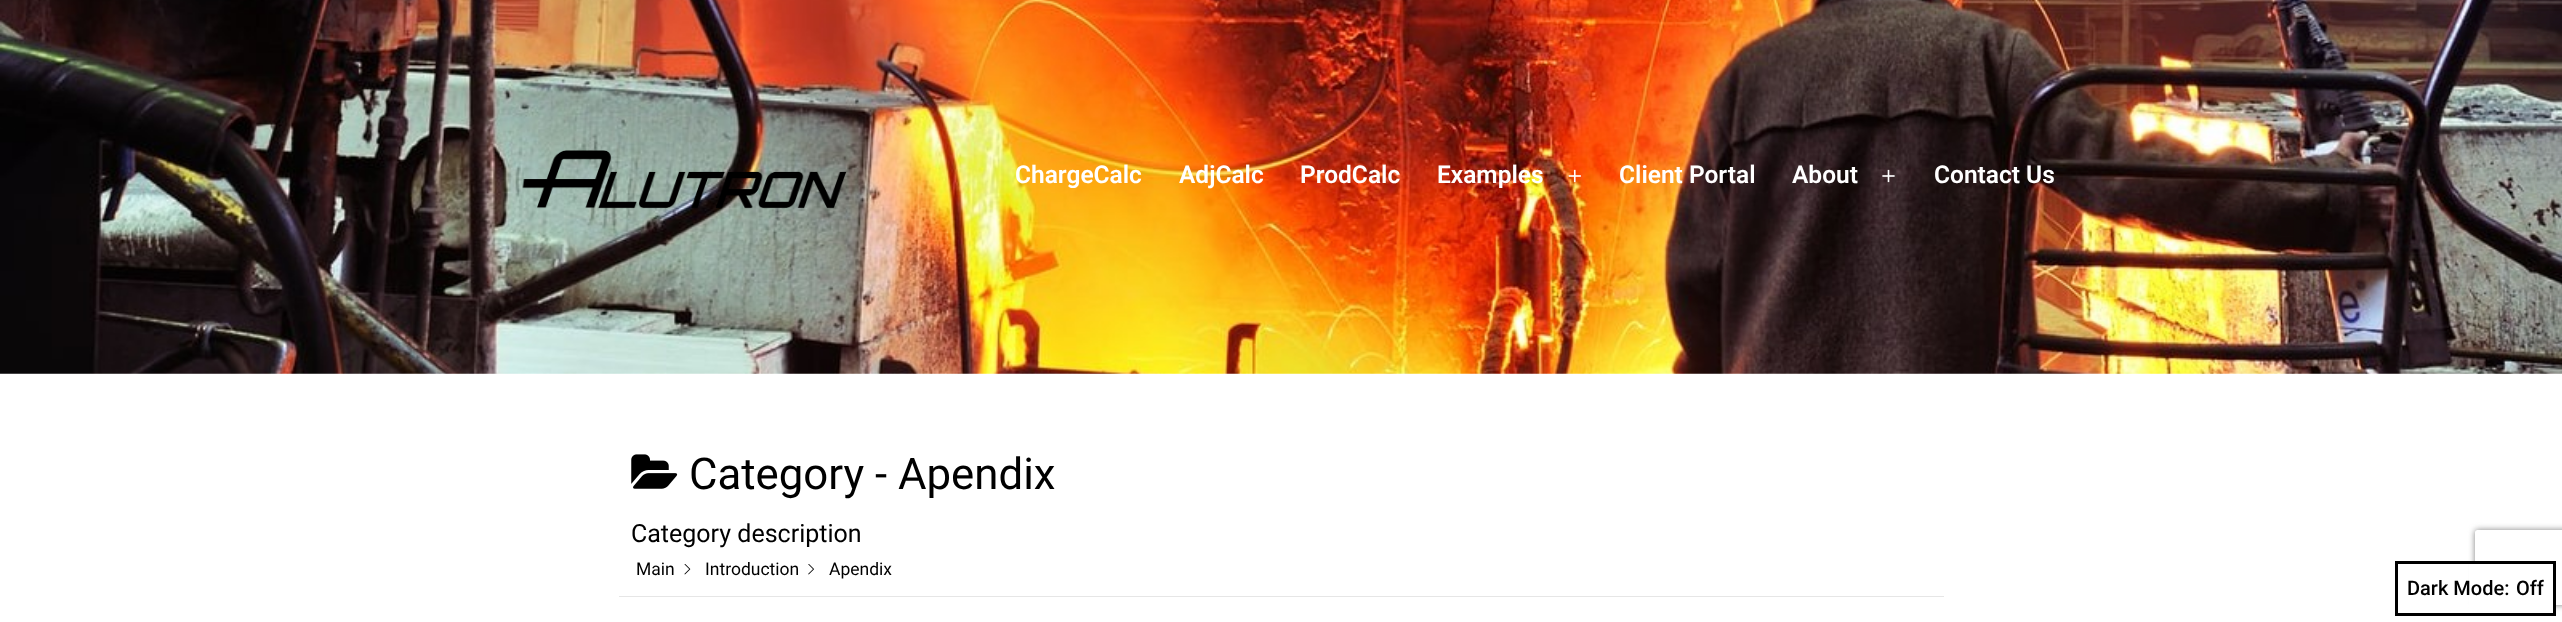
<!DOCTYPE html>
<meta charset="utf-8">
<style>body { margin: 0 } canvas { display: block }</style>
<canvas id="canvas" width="2562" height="622"></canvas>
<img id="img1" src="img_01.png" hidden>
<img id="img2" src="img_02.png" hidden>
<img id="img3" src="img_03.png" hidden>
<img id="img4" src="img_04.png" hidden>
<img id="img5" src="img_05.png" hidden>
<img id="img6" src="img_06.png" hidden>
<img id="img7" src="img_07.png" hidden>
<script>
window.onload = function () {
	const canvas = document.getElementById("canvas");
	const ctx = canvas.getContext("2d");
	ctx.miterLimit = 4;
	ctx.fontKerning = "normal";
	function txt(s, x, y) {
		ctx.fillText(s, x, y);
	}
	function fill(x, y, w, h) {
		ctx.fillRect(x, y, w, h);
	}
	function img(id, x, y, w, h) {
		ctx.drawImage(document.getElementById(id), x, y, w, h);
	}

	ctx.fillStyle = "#FFFFFF";
	fill(0, 0, 2562, 622);
	img("img1", 0, 0, 2562, 374);
	img("img2", 522, 150, 325, 59);
	img("img3", 1568, 169, 13, 14);
	img("img4", 1882, 169, 13, 14);
	ctx.fillStyle = "#E6E6E6";
	fill(619, 596, 1325, 1);
	img("img5", 631, 454, 47, 35);
	img("img6", 684, 564, 7, 11);
	img("img7", 808, 564, 6, 11);
	ctx.save();
	ctx.beginPath();
	ctx.moveTo(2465, 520);
	ctx.lineTo(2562, 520);
	ctx.lineTo(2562, 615);
	ctx.lineTo(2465, 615);
	ctx.closePath();
	ctx.moveTo(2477.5, 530);
	ctx.lineTo(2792.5, 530);
	ctx.bezierCurveTo(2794, 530, 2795, 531, 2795, 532.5);
	ctx.lineTo(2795, 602.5);
	ctx.bezierCurveTo(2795, 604, 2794, 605, 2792.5, 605);
	ctx.lineTo(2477.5, 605);
	ctx.bezierCurveTo(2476, 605, 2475, 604, 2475, 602.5);
	ctx.lineTo(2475, 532.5);
	ctx.bezierCurveTo(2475, 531, 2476, 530, 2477.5, 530);
	ctx.closePath();
	ctx.clip("evenodd");
	ctx.fillStyle = "#808080";
	ctx.filter = "blur(3px)";
	ctx.beginPath();
	ctx.roundRect(2475, 530, 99, 75, 2.5);
	ctx.fill();
	ctx.filter = "none";
	ctx.restore();
	ctx.fillStyle = "#FFFFFF";
	fill(2469, 564, 84, 47);
	ctx.strokeStyle = "#000000";
	ctx.lineWidth = 3;
	ctx.strokeRect(2396.5, 562.5, 158, 52);
	ctx.font = "600 24.5px Roboto";
	txt("ChargeCalc", 1015, 183);
	txt("AdjCalc", 1179, 183);
	txt("ProdCalc", 1300, 183);
	txt("Examples", 1437, 183);
	txt("Client Portal", 1619, 183);
	txt("About", 1792, 183);
	txt("Contact Us", 1934, 183);
	ctx.font = "43.75px Roboto";
	ctx.fillStyle = "#000000";
	txt("Category - Apendix", 689, 489);
	ctx.font = "25px Roboto";
	txt("Category description", 631, 542);
	ctx.font = "17.5px Roboto";
	txt("Main", 636, 575);
	txt("Introduction", 705, 575);
	txt("Apendix", 829, 575);
	ctx.font = "500 20px Roboto";
	txt("Dark Mode:", 2407, 595);
	txt("Off", 2516, 595);
};
</script>
